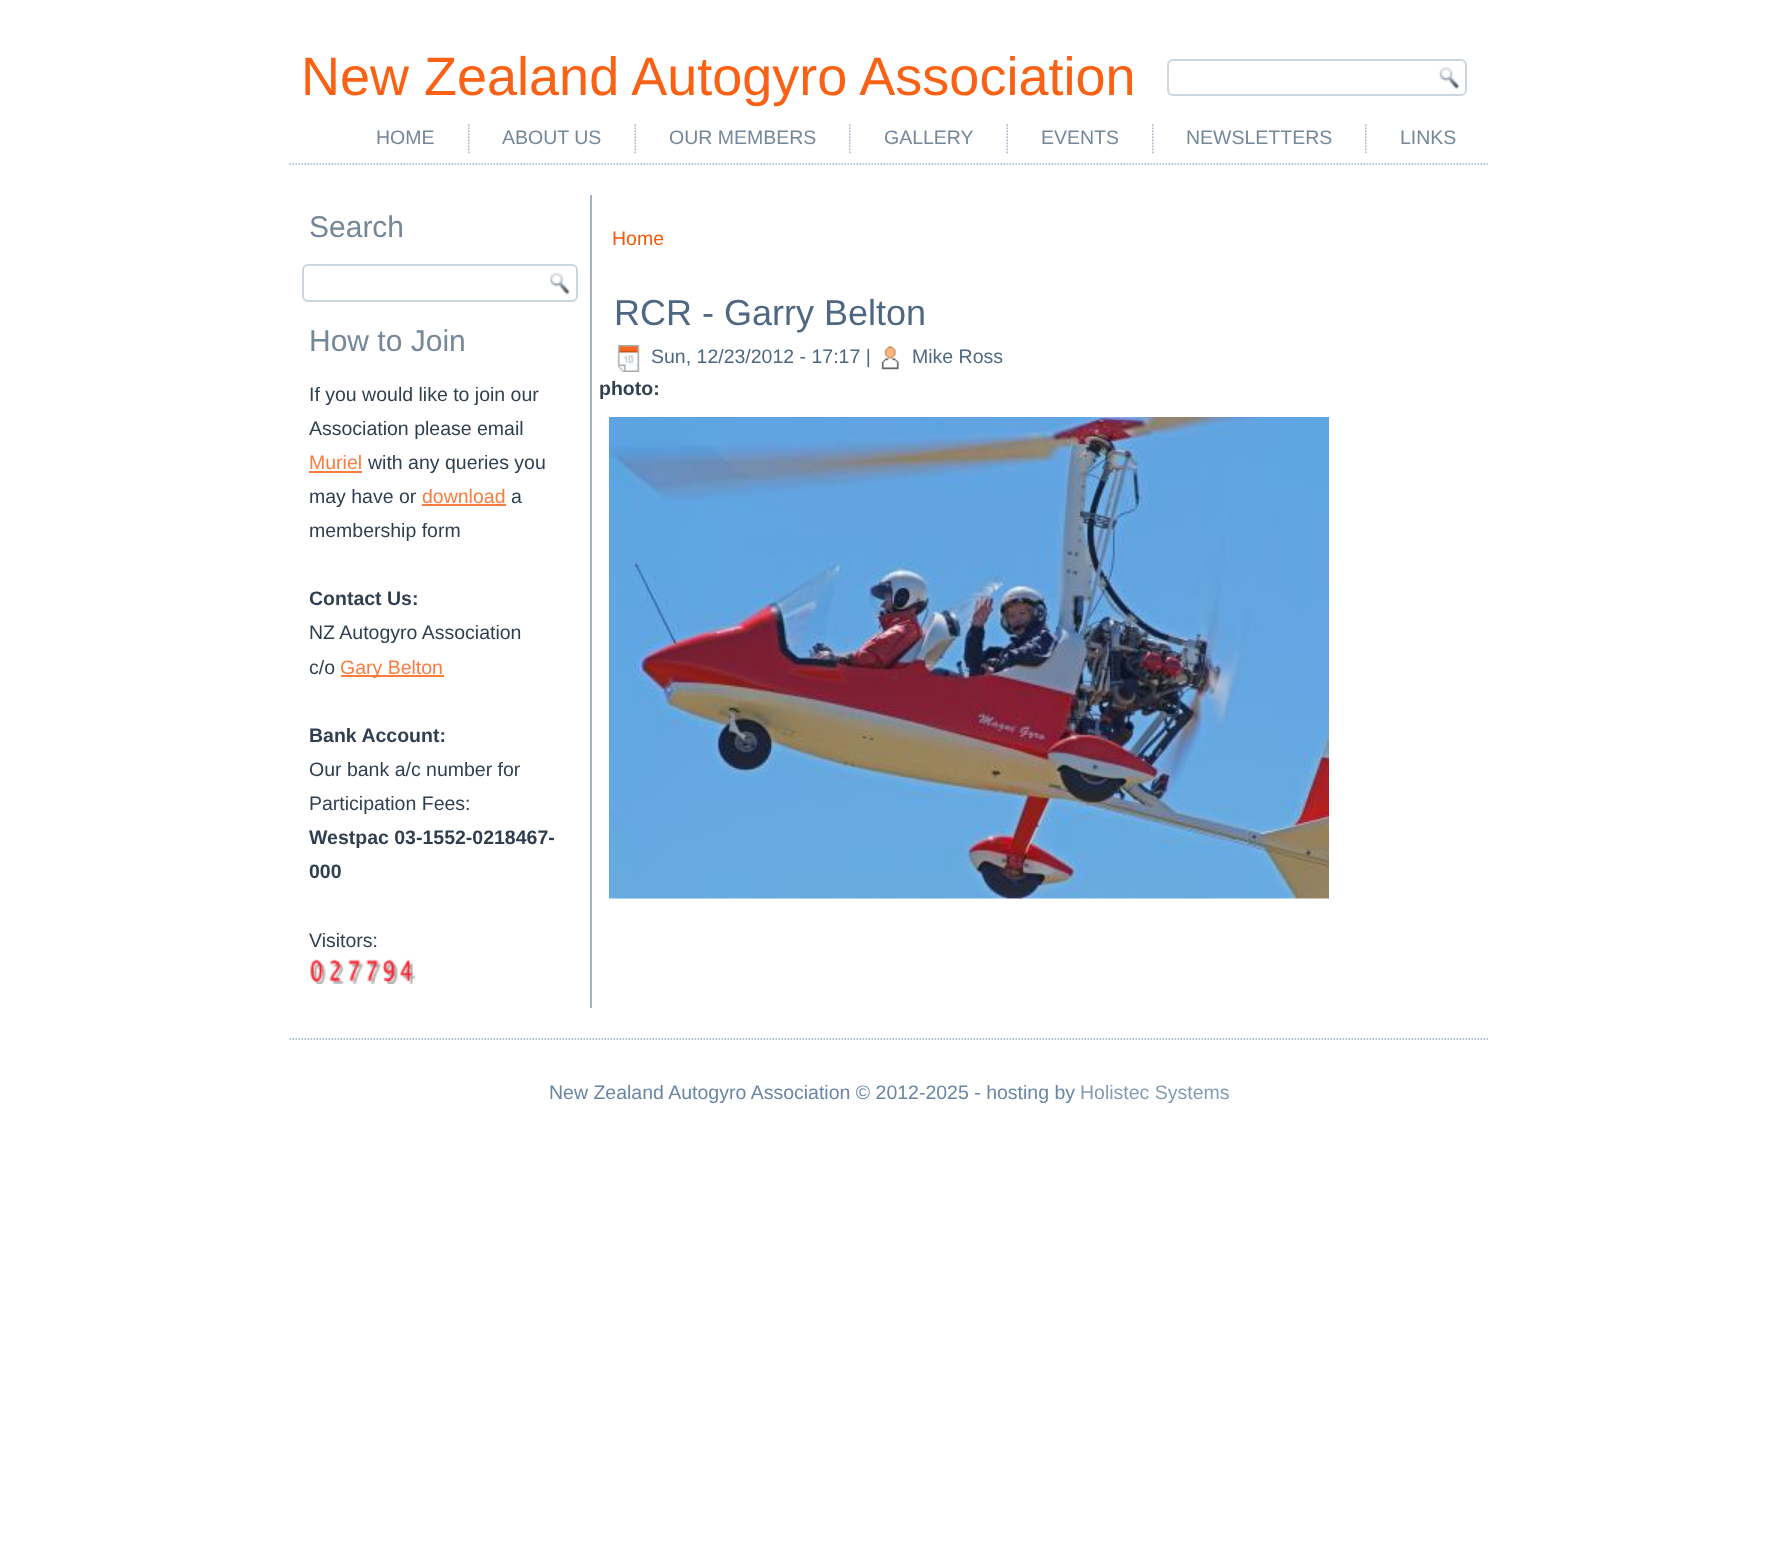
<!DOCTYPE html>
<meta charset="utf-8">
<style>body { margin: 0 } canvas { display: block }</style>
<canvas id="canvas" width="1779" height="1563"></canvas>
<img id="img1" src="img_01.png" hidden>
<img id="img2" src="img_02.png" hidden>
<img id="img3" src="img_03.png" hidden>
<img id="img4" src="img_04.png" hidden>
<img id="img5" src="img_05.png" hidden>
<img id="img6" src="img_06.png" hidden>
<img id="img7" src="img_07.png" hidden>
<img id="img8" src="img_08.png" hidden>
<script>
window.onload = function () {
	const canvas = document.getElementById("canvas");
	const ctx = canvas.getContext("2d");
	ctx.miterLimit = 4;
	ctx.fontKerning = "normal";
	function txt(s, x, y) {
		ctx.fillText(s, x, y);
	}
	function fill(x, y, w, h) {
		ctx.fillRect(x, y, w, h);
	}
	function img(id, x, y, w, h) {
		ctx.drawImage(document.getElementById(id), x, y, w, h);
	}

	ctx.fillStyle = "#FFFFFF";
	fill(0, 0, 1779, 1563);
	ctx.beginPath();
	ctx.roundRect(1168, 60, 298, 35, 5);
	ctx.strokeStyle = "#CCD6E0";
	ctx.lineWidth = 2;
	ctx.stroke();
	img("img1", 1438, 67, 22, 22);
	ctx.beginPath();
	ctx.moveTo(289.5, 164);
	ctx.lineTo(1489.5, 164);
	ctx.strokeStyle = "#A3B4C8";
	ctx.lineWidth = 1.5;
	ctx.setLineDash([1.5, 1.5]);
	ctx.stroke();
	img("img2", 468, 124, 2, 30);
	img("img3", 634, 124, 2, 30);
	img("img2", 849, 124, 2, 30);
	img("img3", 1006, 124, 2, 30);
	img("img2", 1152, 124, 2, 30);
	img("img2", 1365, 124, 2, 30);
	ctx.fillStyle = "#A3B4C8";
	fill(590, 195, 2, 813);
	ctx.beginPath();
	ctx.roundRect(303, 265, 274, 36, 5);
	ctx.strokeStyle = "#CCD6E0";
	ctx.lineWidth = 2;
	ctx.setLineDash([]);
	ctx.stroke();
	img("img4", 549, 272, 21, 23);
	ctx.fillStyle = "#FB7C3C";
	fill(309, 471, 53, 2);
	fill(422, 504, 84, 2);
	fill(341, 675, 103, 2);
	img("img5", 310, 959, 106, 25);
	img("img6", 617, 345, 23, 27);
	img("img7", 881, 346, 18, 24);
	img("img8", 609, 417, 720, 482);
	ctx.beginPath();
	ctx.moveTo(289.5, 1039);
	ctx.lineTo(1489.5, 1039);
	ctx.strokeStyle = "#9CAFC4";
	ctx.lineWidth = 1.5;
	ctx.setLineDash([1.5, 1.5]);
	ctx.stroke();
	ctx.font = "54px Liberation Sans";
	ctx.fillStyle = "#FA6114";
	txt("New Zealand Autogyro Association", 301, 95);
	ctx.font = "19.5px Liberation Sans";
	ctx.fillStyle = "#758799";
	txt("HOME", 376, 144);
	txt("ABOUT US", 502, 144);
	txt("OUR MEMBERS", 669, 144);
	txt("GALLERY", 884, 144);
	txt("EVENTS", 1041, 144);
	txt("NEWSLETTERS", 1186, 144);
	txt("LINKS", 1400, 144);
	ctx.font = "30px Liberation Sans";
	txt("Search", 309, 237);
	txt("How to Join", 309, 351);
	ctx.font = "19.5px Liberation Sans";
	ctx.fillStyle = "#303F50";
	txt("If you would like to join our", 309, 401);
	txt("Association please email", 309, 435);
	ctx.fillStyle = "#FB7C3C";
	txt("Muriel", 309, 469);
	ctx.fillStyle = "#303F50";
	txt("with any queries you", 368, 469);
	txt("may have or", 309, 503);
	ctx.fillStyle = "#FB7C3C";
	txt("download", 422, 503);
	ctx.fillStyle = "#303F50";
	txt("a", 511, 503);
	txt("membership form", 309, 537);
	ctx.font = "bold 19.5px Liberation Sans";
	txt("Contact Us:", 309, 605);
	ctx.font = "19.5px Liberation Sans";
	txt("NZ Autogyro Association", 309, 639);
	txt("c/o", 309, 674);
	ctx.fillStyle = "#FB7C3C";
	txt("Gary Belton", 340, 674);
	ctx.font = "bold 19.5px Liberation Sans";
	ctx.fillStyle = "#303F50";
	txt("Bank Account:", 309, 742);
	ctx.font = "19.5px Liberation Sans";
	txt("Our bank a/c number for", 309, 776);
	txt("Participation Fees:", 309, 810);
	ctx.font = "bold 19.5px Liberation Sans";
	txt("Westpac 03-1552-0218467-", 309, 844);
	txt("000", 309, 878);
	ctx.font = "19.5px Liberation Sans";
	txt("Visitors:", 309, 947);
	ctx.fillStyle = "#FA5705";
	txt("Home", 612, 245);
	ctx.font = "36px Liberation Sans";
	ctx.fillStyle = "#4E6883";
	txt("RCR - Garry Belton", 614, 325);
	ctx.font = "19.5px Liberation Sans";
	txt("Sun, 12/23/2012 - 17:17 |", 651, 363);
	txt("Mike Ross", 912, 363);
	ctx.font = "bold 19.5px Liberation Sans";
	ctx.fillStyle = "#303F50";
	txt("photo:", 599, 395);
	ctx.font = "19.5px Liberation Sans";
	ctx.fillStyle = "#6986A5";
	txt("New Zealand Autogyro Association © 2012-2025 - hosting by", 549, 1099);
	ctx.fillStyle = "#839BB4";
	txt("Holistec Systems", 1080, 1099);
};
</script>
